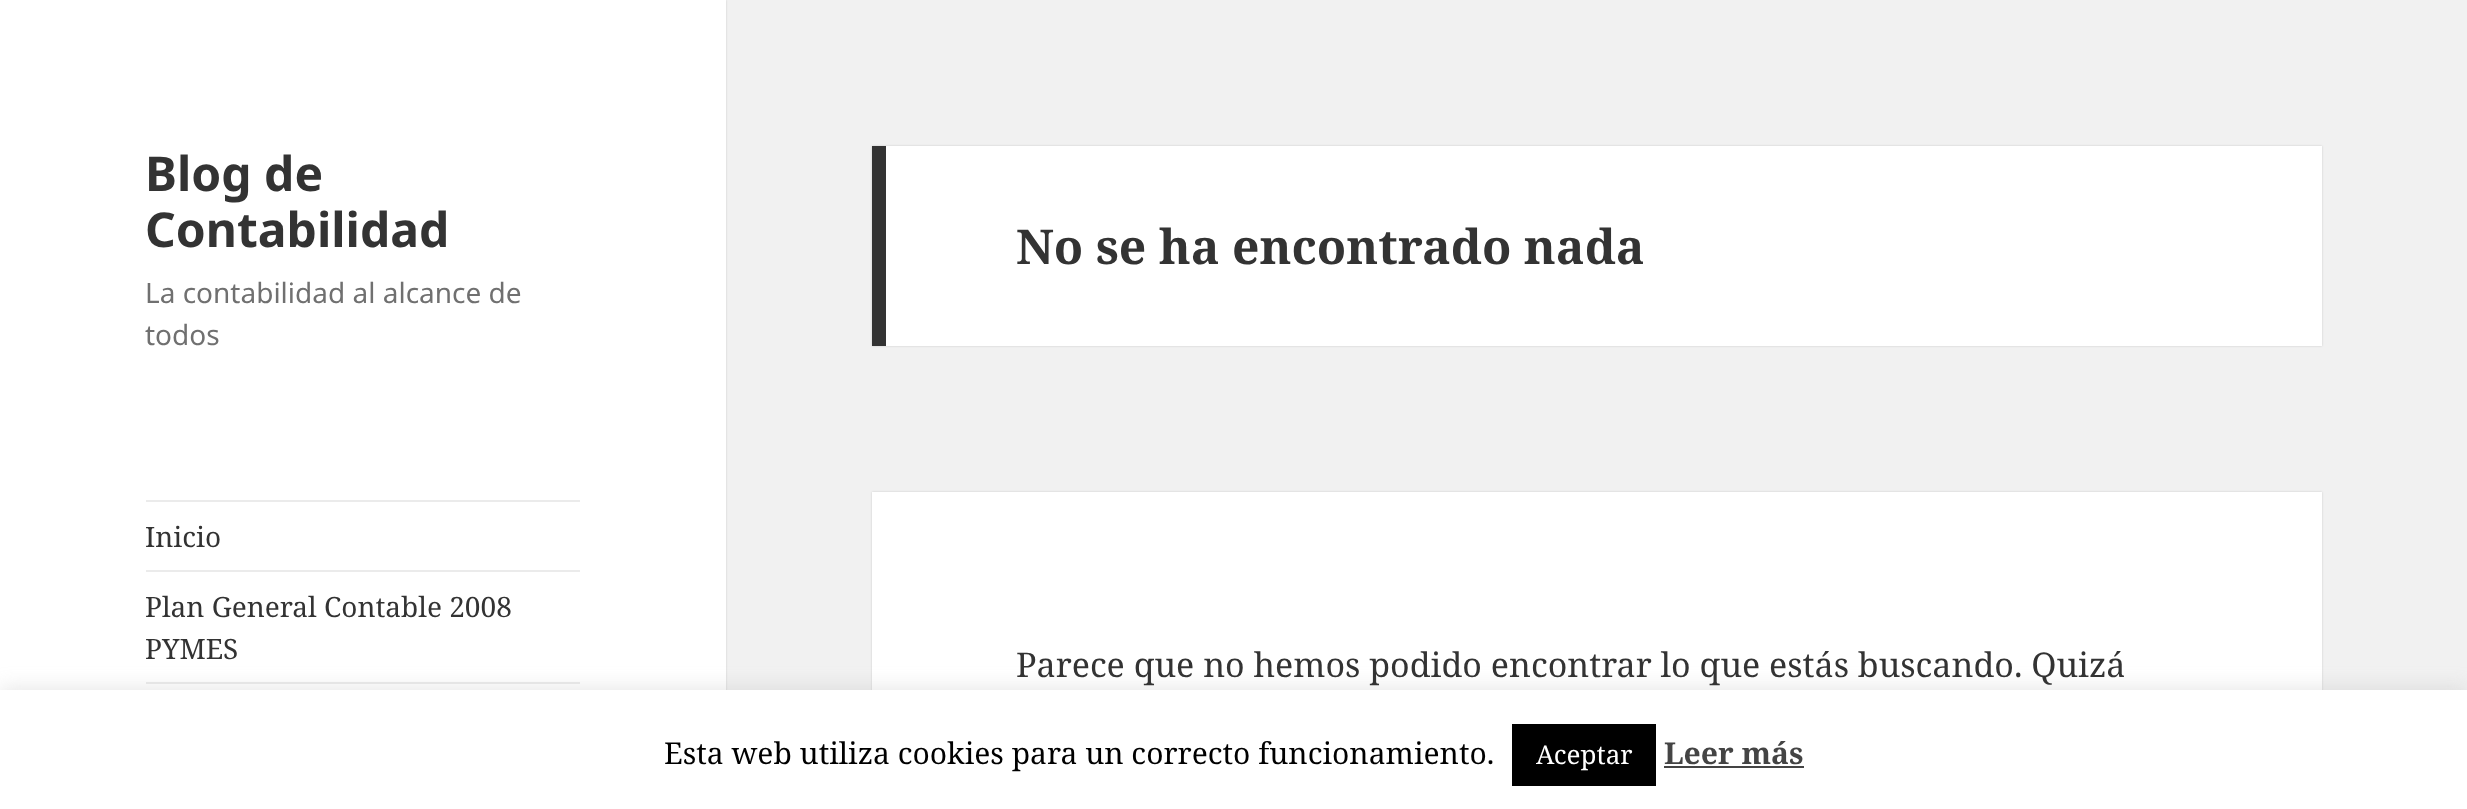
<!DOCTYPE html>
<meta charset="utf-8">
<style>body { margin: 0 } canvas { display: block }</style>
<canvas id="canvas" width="2467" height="809"></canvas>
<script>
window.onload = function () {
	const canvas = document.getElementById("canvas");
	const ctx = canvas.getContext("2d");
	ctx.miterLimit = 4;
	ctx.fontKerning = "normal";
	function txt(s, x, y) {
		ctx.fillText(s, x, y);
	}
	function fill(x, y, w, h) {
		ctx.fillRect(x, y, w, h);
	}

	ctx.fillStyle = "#F1F1F1";
	fill(0, 0, 2467, 809);
	ctx.fillStyle = "rgba(0, 0, 0, 0.15)";
	ctx.filter = "blur(1px)";
	ctx.beginPath();
	ctx.rect(0, 0, 726, 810);
	ctx.fill();
	ctx.filter = "none";
	ctx.fillStyle = "#FFFFFF";
	fill(0, 0, 726, 690);
	ctx.fillStyle = "#EBEBEB";
	fill(146, 500, 434, 2);
	fill(146, 570, 434, 2);
	fill(146, 682, 434, 2);
	ctx.fillStyle = "rgba(0, 0, 0, 0.15)";
	ctx.filter = "blur(1px)";
	ctx.beginPath();
	ctx.rect(872, 146, 1450, 200);
	ctx.fill();
	ctx.filter = "none";
	ctx.fillStyle = "#FFFFFF";
	fill(886, 146, 1436, 200);
	ctx.fillStyle = "#333333";
	fill(872, 146, 14, 200);
	ctx.fillStyle = "rgba(0, 0, 0, 0.15)";
	ctx.filter = "blur(1px)";
	ctx.beginPath();
	ctx.rect(872, 492, 1450, 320);
	ctx.fill();
	ctx.filter = "none";
	ctx.fillStyle = "#FFFFFF";
	fill(872, 492, 1450, 198);
	ctx.fillStyle = "rgba(172, 171, 171, 0.3)";
	ctx.filter = "blur(10px)";
	ctx.beginPath();
	ctx.rect(0, 688, 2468, 120);
	ctx.fill();
	ctx.filter = "none";
	ctx.fillStyle = "#FFFFFF";
	fill(0, 690, 2467, 119);
	ctx.fillStyle = "#000000";
	fill(1512, 724, 144, 62);
	ctx.fillStyle = "#444444";
	fill(1664, 766, 140, 2);
	ctx.font = "bold 48px Noto Sans";
	ctx.fillStyle = "#333333";
	txt("Blog de", 145, 191);
	txt("Contabilidad", 145, 247);
	ctx.font = "28px Noto Sans";
	ctx.fillStyle = "#707070";
	txt("La contabilidad al alcance de", 145, 303);
	txt("todos", 145, 345);
	ctx.font = "28px Noto Serif";
	ctx.fillStyle = "#333333";
	txt("Inicio", 145, 547);
	txt("Plan General Contable 2008", 145, 617);
	txt("PYMES", 145, 659);
	ctx.font = "bold 48px Noto Serif";
	txt("No se ha encontrado nada", 1016, 264);
	ctx.font = "34px Noto Serif";
	txt("Parece que no hemos podido encontrar lo que estás buscando. Quizá", 1016, 677);
	ctx.font = "30px Noto Serif";
	ctx.fillStyle = "#000000";
	txt("Esta web utiliza cookies para un correcto funcionamiento.", 664, 764);
	ctx.font = "26px Noto Serif";
	ctx.fillStyle = "#FFFFFF";
	txt("Aceptar", 1536, 764);
	ctx.font = "bold 30px Noto Serif";
	ctx.fillStyle = "#444444";
	txt("Leer más", 1664, 764);
};
</script>
